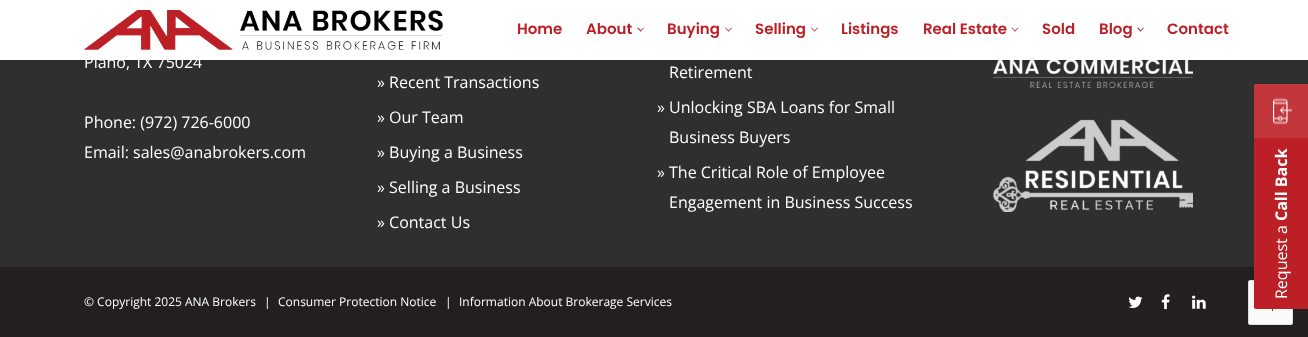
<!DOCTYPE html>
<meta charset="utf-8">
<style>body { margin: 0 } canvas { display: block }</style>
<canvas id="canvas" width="1308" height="337"></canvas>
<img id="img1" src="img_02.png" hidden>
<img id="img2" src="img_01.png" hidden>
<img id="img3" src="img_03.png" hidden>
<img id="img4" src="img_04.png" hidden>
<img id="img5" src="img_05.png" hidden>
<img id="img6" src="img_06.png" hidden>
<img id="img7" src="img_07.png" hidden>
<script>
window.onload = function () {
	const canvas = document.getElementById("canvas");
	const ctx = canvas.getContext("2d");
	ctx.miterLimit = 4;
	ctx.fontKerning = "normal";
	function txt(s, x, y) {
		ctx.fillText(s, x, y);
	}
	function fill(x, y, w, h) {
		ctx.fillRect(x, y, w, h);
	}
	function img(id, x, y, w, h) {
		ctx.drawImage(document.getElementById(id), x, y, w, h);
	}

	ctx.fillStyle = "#302F2F";
	fill(0, 0, 1308, 337);
	img("img1", 993, 60, 200, 28);
	ctx.fillStyle = "rgba(0, 0, 0, 0.1)";
	ctx.filter = "blur(5px)";
	ctx.beginPath();
	ctx.rect(1, 0, 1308, 60);
	ctx.fill();
	ctx.filter = "none";
	ctx.fillStyle = "#FFFFFF";
	fill(0, 0, 1308, 60);
	img("img2", 84, 10, 359, 40);
	ctx.fillStyle = "#BC2026";
	ctx.beginPath();
	ctx.moveTo(640.5, 31.5);
	ctx.lineTo(637, 28);
	ctx.lineTo(638, 27.5);
	ctx.lineTo(641.5, 31);
	ctx.closePath();
	ctx.fill();
	ctx.beginPath();
	ctx.moveTo(640.5, 31.5);
	ctx.lineTo(640, 31);
	ctx.lineTo(643.5, 27.5);
	ctx.lineTo(644, 28);
	ctx.closePath();
	ctx.fill();
	ctx.beginPath();
	ctx.moveTo(728.5, 31.5);
	ctx.lineTo(725, 28);
	ctx.lineTo(725.5, 27.5);
	ctx.lineTo(729, 31);
	ctx.closePath();
	ctx.fill();
	ctx.beginPath();
	ctx.moveTo(728.5, 31.5);
	ctx.lineTo(728, 31);
	ctx.lineTo(731.5, 27.5);
	ctx.lineTo(732, 28);
	ctx.closePath();
	ctx.fill();
	ctx.beginPath();
	ctx.moveTo(814.5, 31.5);
	ctx.lineTo(811, 28);
	ctx.lineTo(811.5, 27.5);
	ctx.lineTo(815, 31);
	ctx.closePath();
	ctx.fill();
	ctx.beginPath();
	ctx.moveTo(814.5, 31.5);
	ctx.lineTo(814, 31);
	ctx.lineTo(817.5, 27.5);
	ctx.lineTo(818, 28);
	ctx.closePath();
	ctx.fill();
	ctx.beginPath();
	ctx.moveTo(1015, 31.5);
	ctx.lineTo(1011.5, 28);
	ctx.lineTo(1012, 27.5);
	ctx.lineTo(1015.5, 31);
	ctx.closePath();
	ctx.fill();
	ctx.beginPath();
	ctx.moveTo(1015, 31.5);
	ctx.lineTo(1014.5, 31);
	ctx.lineTo(1018, 27.5);
	ctx.lineTo(1018.5, 28);
	ctx.closePath();
	ctx.fill();
	ctx.beginPath();
	ctx.moveTo(1140.5, 31.5);
	ctx.lineTo(1137, 28);
	ctx.lineTo(1138, 27.5);
	ctx.lineTo(1141.5, 31);
	ctx.closePath();
	ctx.fill();
	ctx.beginPath();
	ctx.moveTo(1140.5, 31.5);
	ctx.lineTo(1140, 31);
	ctx.lineTo(1143.5, 27.5);
	ctx.lineTo(1144, 28);
	ctx.closePath();
	ctx.fill();
	img("img3", 993, 119, 200, 93);
	ctx.fillStyle = "#231F20";
	fill(0, 267, 1308, 70);
	img("img4", 1128, 296, 15, 12);
	img("img5", 1161, 294, 9, 16);
	img("img6", 1192, 295, 14, 14);
	ctx.fillStyle = "#FAFAFA";
	ctx.beginPath();
	ctx.roundRect(1248.5, 280.5, 44, 44, 1.5);
	ctx.fill();
	ctx.strokeStyle = "#DDDDDD";
	ctx.stroke();
	ctx.fillStyle = "#BC2026";
	ctx.beginPath();
	ctx.moveTo(1254, 307);
	ctx.lineTo(1254, 86);
	ctx.bezierCurveTo(1254, 85, 1255, 84, 1256, 84);
	ctx.lineTo(1308, 84);
	ctx.lineTo(1308, 309);
	ctx.lineTo(1256, 309);
	ctx.bezierCurveTo(1255, 309, 1254, 308, 1254, 307);
	ctx.closePath();
	ctx.fill();
	ctx.fillStyle = "rgba(255, 255, 255, 0.1)";
	fill(1254, 84, 54, 54);
	img("img7", 1273, 98, 19, 27);
	ctx.fillStyle = "#BC2026";
	fill(1272, 309, 1, 2);
	ctx.font = "600 15px Poppins";
	txt("Home", 517, 34);
	txt("About", 586, 34);
	txt("Buying", 667, 34);
	txt("Selling", 755, 34);
	txt("Listings", 841, 34);
	txt("Real Estate", 923, 34);
	txt("Sold", 1042, 34);
	txt("Blog", 1099, 34);
	txt("Contact", 1167, 34);
	ctx.font = "16px Open Sans";
	ctx.fillStyle = "#FFFFFF";
	txt("Plano, TX 75024", 84, 68);
	txt("Phone: (972) 726-6000", 84, 128);
	txt("Email: sales@anabrokers.com", 84, 158);
	txt("» Recent Transactions", 377, 88);
	txt("» Our Team", 377, 123);
	txt("» Buying a Business", 377, 158);
	txt("» Selling a Business", 377, 193);
	txt("» Contact Us", 377, 228);
	txt("Retirement", 669, 78);
	txt("»", 657, 113);
	txt("Unlocking SBA Loans for Small", 669, 113);
	txt("Business Buyers", 669, 143);
	txt("»", 657, 178);
	txt("The Critical Role of Employee", 669, 178);
	txt("Engagement in Business Success", 669, 208);
	ctx.font = "12px Open Sans";
	txt("© Copyright 2025 ANA Brokers", 84, 306);
	txt("|", 264, 306);
	txt("Consumer Protection Notice", 278, 306);
	txt("|", 445, 306);
	txt("Information About Brokerage Services", 459, 306);
	ctx.font = "bold 16px Open Sans";
	ctx.save();
	ctx.translate(1287, 221);
	ctx.rotate(-90 * Math.PI / 180);
	ctx.fillText("Call Back", 0, 0);
	ctx.restore();
	ctx.font = "16px Open Sans";
	ctx.save();
	ctx.translate(1287, 299);
	ctx.rotate(-90 * Math.PI / 180);
	ctx.fillText("Request a", 0, 0);
	ctx.restore();
};
</script>
